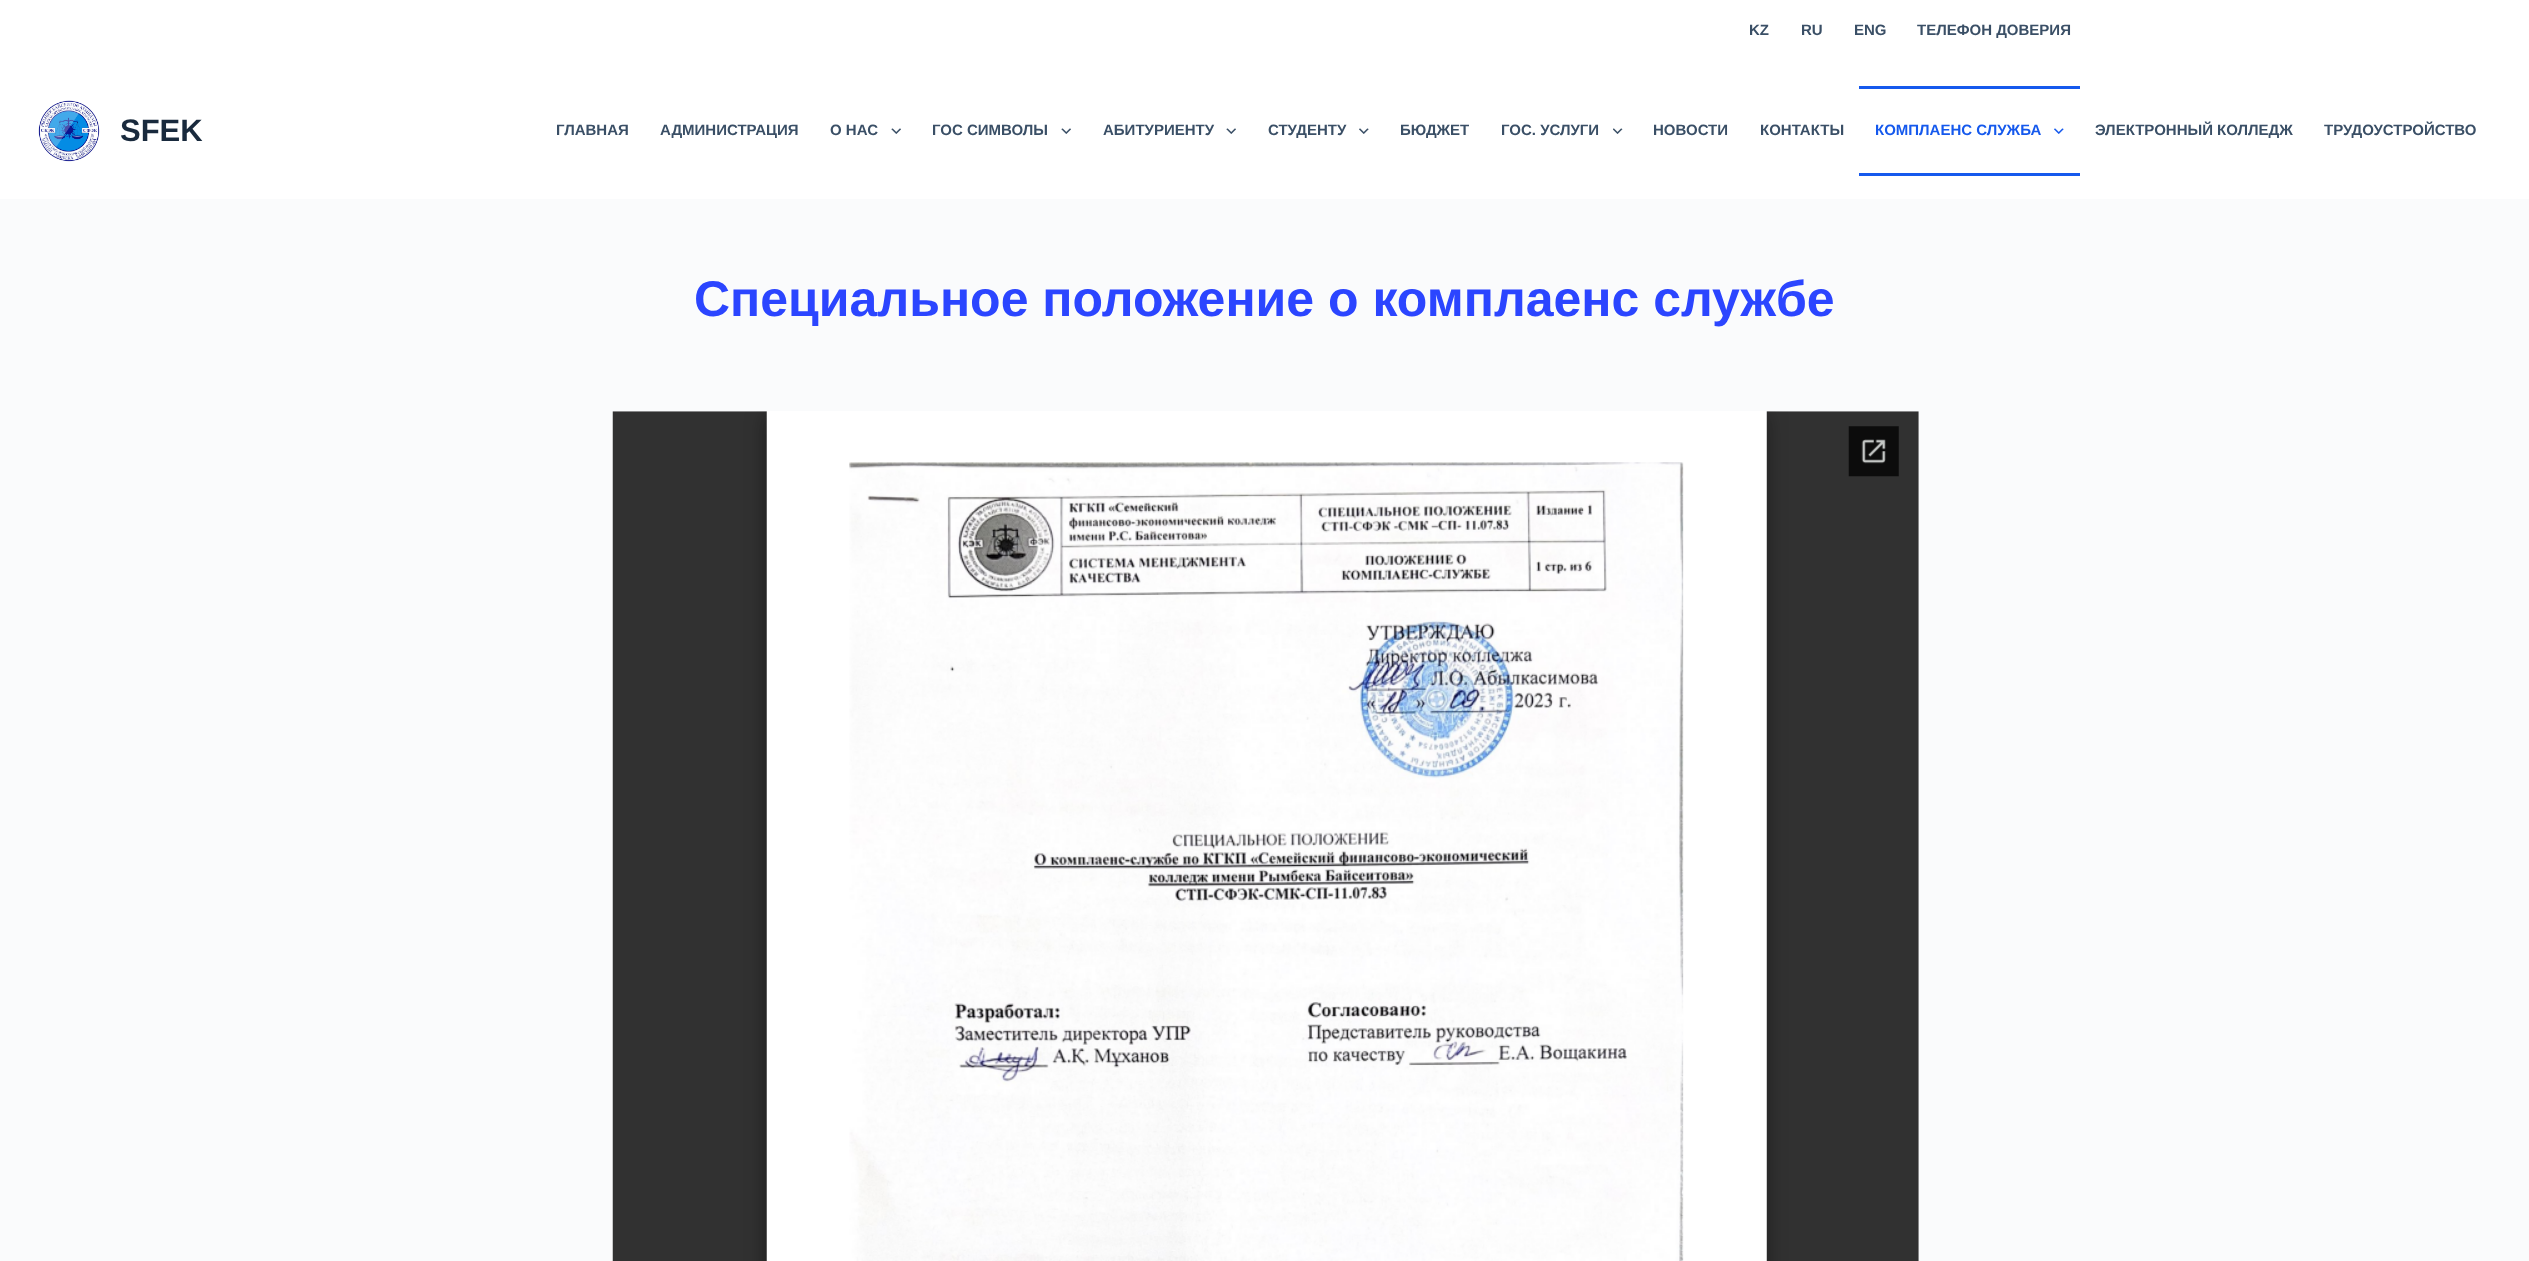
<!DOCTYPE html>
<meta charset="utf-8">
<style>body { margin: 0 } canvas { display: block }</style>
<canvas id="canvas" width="2529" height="1261"></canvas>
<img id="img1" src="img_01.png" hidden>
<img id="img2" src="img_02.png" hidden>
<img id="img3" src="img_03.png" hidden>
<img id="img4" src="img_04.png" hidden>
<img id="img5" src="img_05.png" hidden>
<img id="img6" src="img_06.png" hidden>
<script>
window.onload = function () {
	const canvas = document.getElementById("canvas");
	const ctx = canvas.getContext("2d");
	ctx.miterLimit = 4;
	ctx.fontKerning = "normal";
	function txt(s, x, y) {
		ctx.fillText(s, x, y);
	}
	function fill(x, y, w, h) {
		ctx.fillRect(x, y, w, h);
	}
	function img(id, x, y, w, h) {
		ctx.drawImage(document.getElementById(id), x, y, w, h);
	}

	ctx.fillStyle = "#FAFBFC";
	fill(0, 0, 2529, 1261);
	ctx.fillStyle = "#FFFFFF";
	fill(0, 0, 2529, 199);
	img("img1", 38, 100, 62, 62);
	img("img2", 891, 128, 10, 6);
	img("img2", 1061, 128, 10, 6);
	img("img2", 1226, 128, 10, 6);
	img("img3", 1359, 128, 10, 6);
	img("img4", 1613, 128, 10, 6);
	ctx.fillStyle = "#1559ED";
	fill(1859, 86, 221, 3);
	img("img5", 2054, 128, 10, 6);
	fill(1859, 173, 221, 3);
	img("img6", 612, 411, 1307, 850);
	ctx.font = "bold 15px Liberation Sans";
	ctx.fillStyle = "#3A4F66";
	txt("KZ", 1749, 35);
	txt("RU", 1801, 35);
	txt("ENG", 1854, 35);
	txt("ТЕЛЕФОН ДОВЕРИЯ", 1917, 35);
	ctx.font = "bold 31px Liberation Sans";
	ctx.fillStyle = "#192A3D";
	txt("SFEK", 120, 141);
	ctx.font = "bold 15px Liberation Sans";
	ctx.fillStyle = "#3A4F66";
	txt("ГЛАВНАЯ", 556, 135);
	txt("АДМИНИСТРАЦИЯ", 660, 135);
	txt("О НАС", 830, 135);
	txt("ГОС СИМВОЛЫ", 932, 135);
	txt("АБИТУРИЕНТУ", 1103, 135);
	txt("СТУДЕНТУ", 1268, 135);
	txt("БЮДЖЕТ", 1400, 135);
	txt("ГОС. УСЛУГИ", 1501, 135);
	txt("НОВОСТИ", 1653, 135);
	txt("КОНТАКТЫ", 1760, 135);
	ctx.fillStyle = "#1559ED";
	txt("КОМПЛАЕНС СЛУЖБА", 1875, 135);
	ctx.fillStyle = "#3A4F66";
	txt("ЭЛЕКТРОННЫЙ КОЛЛЕДЖ", 2095, 135);
	txt("ТРУДОУСТРОЙСТВО", 2324, 135);
	ctx.font = "bold 50px Liberation Sans";
	ctx.fillStyle = "#2B45FF";
	txt("Специальное положение о комплаенс службе", 694, 316);
};
</script>
